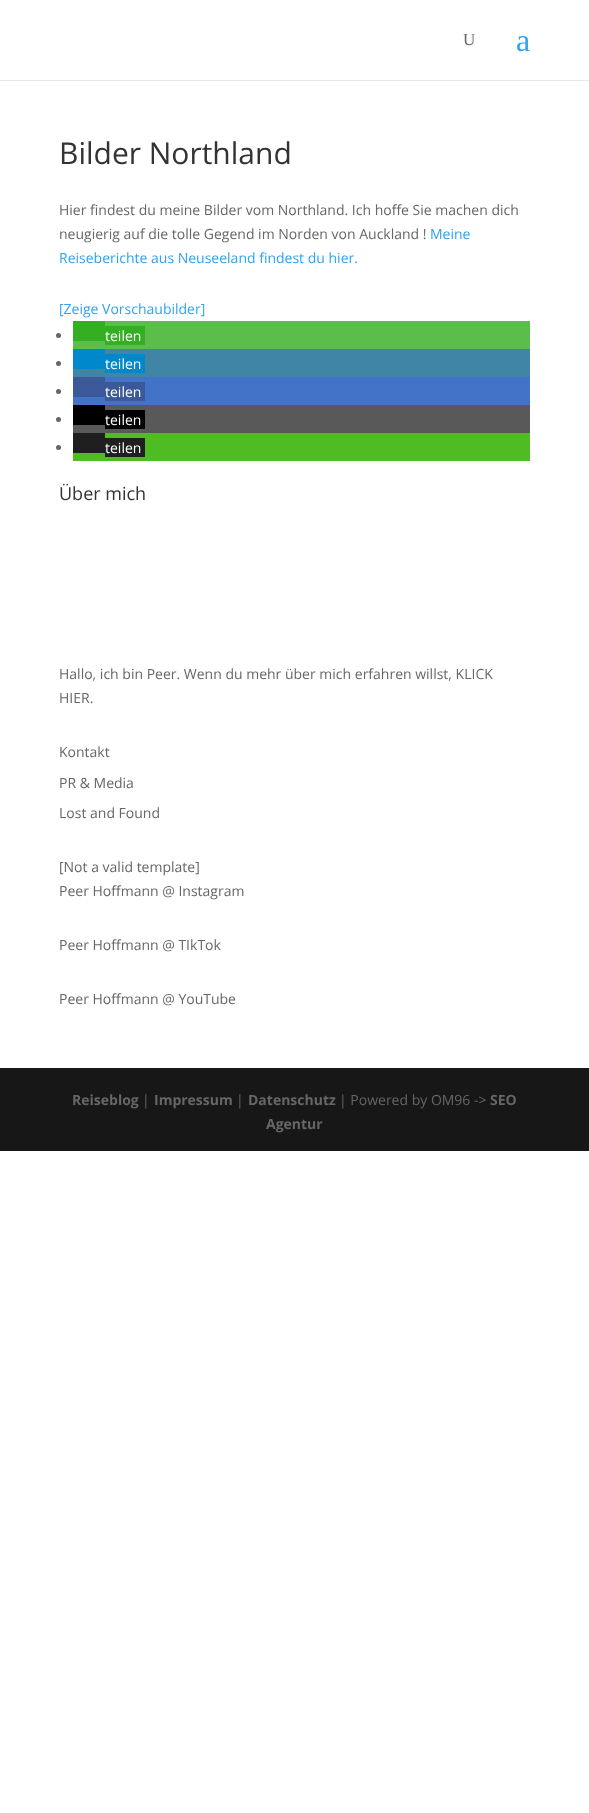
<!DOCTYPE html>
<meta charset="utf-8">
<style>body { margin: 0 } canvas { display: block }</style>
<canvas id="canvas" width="589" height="1813"></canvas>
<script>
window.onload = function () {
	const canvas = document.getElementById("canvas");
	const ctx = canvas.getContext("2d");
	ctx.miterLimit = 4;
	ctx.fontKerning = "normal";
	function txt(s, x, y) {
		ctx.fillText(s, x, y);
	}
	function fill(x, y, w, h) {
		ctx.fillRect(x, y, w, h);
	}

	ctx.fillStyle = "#FFFFFF";
	fill(0, 0, 589, 1813);
	ctx.fillStyle = "#E6E6E6";
	fill(0, 80, 589, 1);
	ctx.fillStyle = "#5CBE4A";
	fill(73, 321, 457, 28);
	ctx.fillStyle = "#666666";
	ctx.beginPath();
	ctx.arc(58.5, 335.5, 2.5, 0, Math.PI * 2);
	ctx.fill();
	ctx.fillStyle = "#34AF23";
	fill(73, 321, 32, 20);
	fill(105, 326, 40, 19);
	ctx.fillStyle = "#4084A6";
	fill(73, 349, 457, 28);
	ctx.fillStyle = "#666666";
	ctx.beginPath();
	ctx.arc(58.5, 363.5, 2.5, 0, Math.PI * 2);
	ctx.fill();
	ctx.fillStyle = "#0088CC";
	fill(73, 349, 32, 20);
	fill(105, 354, 40, 19);
	ctx.fillStyle = "#4273C8";
	fill(73, 377, 457, 28);
	ctx.fillStyle = "#666666";
	ctx.beginPath();
	ctx.arc(58.5, 391.5, 2.5, 0, Math.PI * 2);
	ctx.fill();
	ctx.fillStyle = "#3B5998";
	fill(73, 377, 32, 20);
	fill(105, 382, 40, 19);
	ctx.fillStyle = "#595959";
	fill(73, 405, 457, 28);
	ctx.fillStyle = "#666666";
	ctx.beginPath();
	ctx.arc(58.5, 419.5, 2.5, 0, Math.PI * 2);
	ctx.fill();
	ctx.fillStyle = "#000000";
	fill(73, 405, 32, 20);
	fill(105, 410, 40, 19);
	ctx.fillStyle = "#4FBC24";
	fill(73, 433, 457, 28);
	ctx.fillStyle = "#666666";
	ctx.beginPath();
	ctx.arc(58.5, 447.5, 2.5, 0, Math.PI * 2);
	ctx.fill();
	ctx.fillStyle = "#1F1F1F";
	fill(73, 433, 32, 20);
	fill(105, 438, 40, 19);
	ctx.fillStyle = "#171717";
	fill(0, 1068, 589, 83);
	ctx.font = "17px Liberation Serif";
	ctx.fillStyle = "#666666";
	txt("U", 463, 45);
	ctx.font = "32px Liberation Serif";
	ctx.fillStyle = "#2EA3F2";
	txt("a", 516, 51);
	ctx.font = "30px Open Sans";
	ctx.fillStyle = "#333333";
	txt("Bilder Northland", 59, 164);
	ctx.font = "14px Open Sans";
	ctx.fillStyle = "#666666";
	txt("Hier findest du meine Bilder vom Northland. Ich hoffe Sie machen dich", 59, 215);
	txt("neugierig auf die tolle Gegend im Norden von Auckland !", 59, 239);
	ctx.fillStyle = "#2EA3F2";
	txt("Meine", 430, 239);
	txt("Reiseberichte aus Neuseeland findest du hier.", 59, 263);
	txt("[Zeige Vorschaubilder]", 59, 314);
	ctx.fillStyle = "#FFFFFF";
	txt("teilen", 105, 341);
	txt("teilen", 105, 369);
	txt("teilen", 105, 397);
	txt("teilen", 105, 425);
	txt("teilen", 105, 453);
	ctx.font = "18px Open Sans";
	ctx.fillStyle = "#333333";
	txt("Über mich", 59, 500);
	ctx.font = "14px Open Sans";
	ctx.fillStyle = "#666666";
	txt("Hallo, ich bin Peer. Wenn du mehr über mich erfahren willst, KLICK", 59, 679);
	txt("HIER.", 59, 703);
	txt("Kontakt", 59, 757);
	txt("PR & Media", 59, 788);
	txt("Lost and Found", 59, 818);
	txt("[Not a valid template]", 59, 872);
	txt("Peer Hoffmann @ Instagram", 59, 896);
	txt("Peer Hoffmann @ TIkTok", 59, 950);
	txt("Peer Hoffmann @ YouTube", 59, 1004);
	ctx.font = "bold 14px Open Sans";
	txt("Reiseblog", 72, 1105);
	ctx.font = "14px Open Sans";
	txt("|", 142, 1105);
	ctx.font = "bold 14px Open Sans";
	txt("Impressum", 154, 1105);
	ctx.font = "14px Open Sans";
	txt("|", 236, 1105);
	ctx.font = "bold 14px Open Sans";
	txt("Datenschutz", 248, 1105);
	ctx.font = "14px Open Sans";
	txt("| Powered by OM96 ->", 339, 1105);
	ctx.font = "bold 14px Open Sans";
	txt("SEO", 490, 1105);
	txt("Agentur", 266, 1129);
};
</script>
